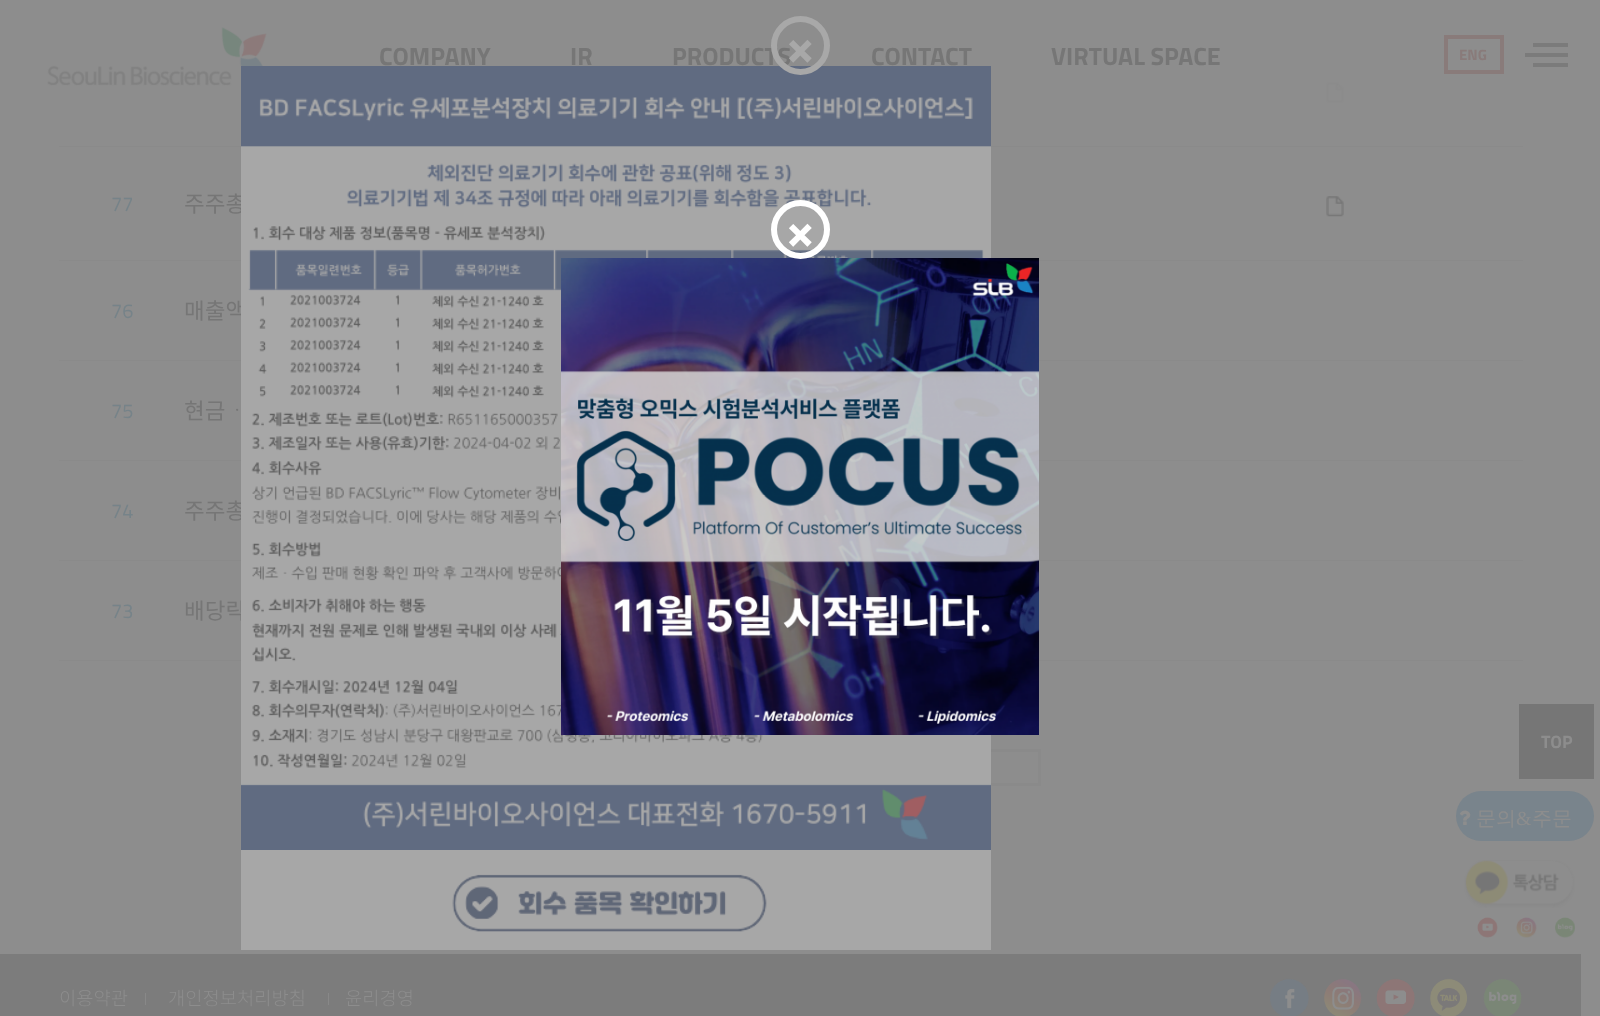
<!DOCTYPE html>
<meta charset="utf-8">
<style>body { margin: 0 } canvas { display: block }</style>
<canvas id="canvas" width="1600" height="1016"></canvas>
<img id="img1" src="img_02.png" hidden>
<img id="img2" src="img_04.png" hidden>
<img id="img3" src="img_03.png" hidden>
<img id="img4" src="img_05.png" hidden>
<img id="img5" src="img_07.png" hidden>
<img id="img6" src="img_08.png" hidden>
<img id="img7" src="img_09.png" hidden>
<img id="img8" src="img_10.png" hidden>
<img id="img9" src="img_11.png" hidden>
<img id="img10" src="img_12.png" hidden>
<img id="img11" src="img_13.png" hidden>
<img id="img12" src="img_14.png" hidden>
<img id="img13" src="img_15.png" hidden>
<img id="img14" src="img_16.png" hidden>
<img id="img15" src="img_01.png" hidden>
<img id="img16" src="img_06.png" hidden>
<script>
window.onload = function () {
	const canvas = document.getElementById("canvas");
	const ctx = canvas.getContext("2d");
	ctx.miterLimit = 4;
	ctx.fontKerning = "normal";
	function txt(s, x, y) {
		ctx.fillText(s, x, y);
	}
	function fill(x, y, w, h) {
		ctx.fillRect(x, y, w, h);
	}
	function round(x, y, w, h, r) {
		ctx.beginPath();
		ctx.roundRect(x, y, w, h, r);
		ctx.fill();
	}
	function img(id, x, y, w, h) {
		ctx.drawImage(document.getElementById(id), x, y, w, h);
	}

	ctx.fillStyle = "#8D8D8D";
	fill(0, 0, 1600, 1016);
	img("img1", 241, 850, 750, 100);
	ctx.fillStyle = "#8A8A8A";
	fill(59, 33, 1464, 1);
	img("img2", 1326, 82, 18, 21);
	ctx.fillStyle = "rgba(141, 141, 141, 0.9)";
	fill(59, 33, 1464, 70);
	img("img3", 47, 27, 220, 59);
	ctx.strokeStyle = "#897B7A";
	ctx.lineWidth = 4;
	ctx.strokeRect(1446, 37, 56, 35);
	ctx.fillStyle = "#7B7B7B";
	fill(1533, 63, 35, 4);
	fill(1533, 43, 35, 4);
	fill(1525, 53, 43, 4);
	ctx.fillStyle = "#8A8A8A";
	fill(59, 146, 1464, 1);
	img("img4", 1326, 196, 18, 21);
	fill(59, 260, 1464, 1);
	fill(59, 360, 1464, 1);
	fill(59, 460, 1464, 1);
	fill(59, 560, 1464, 1);
	fill(59, 660, 1464, 1);
	ctx.strokeStyle = "#8A8A8A";
	ctx.lineWidth = 3;
	ctx.strokeRect(965.5, 750.5, 74, 34);
	ctx.fillStyle = "#7C7C7C";
	fill(0, 954, 1581, 62);
	ctx.fillStyle = "#767676";
	fill(1519, 704, 75, 75);
	ctx.fillStyle = "#888888";
	fill(145, 993, 1, 12);
	fill(328, 993, 1, 12);
	img("img5", 1270, 978, 39, 38);
	img("img6", 1323, 978, 39, 38);
	img("img7", 1376, 978, 39, 38);
	img("img8", 1430, 978, 38, 38);
	img("img9", 1483, 978, 39, 38);
	ctx.fillStyle = "#79848C";
	round(1456, 791, 138, 50, 25);
	img("img10", 1459, 810, 12, 15);
	img("img11", 1464, 860, 111, 48);
	img("img12", 1477, 917, 21, 21);
	img("img13", 1516, 917, 21, 21);
	img("img14", 1555, 917, 20, 21);
	ctx.font = "bold 25px Titillium Web";
	ctx.fillStyle = "#767676";
	txt("COMPANY", 379, 65);
	txt("IR", 570, 65);
	txt("PRODUCTS", 672, 65);
	txt("CONTACT", 871, 65);
	txt("VIRTUAL SPACE", 1051, 65);
	ctx.font = "bold 15px Titillium Web";
	ctx.fillStyle = "#897B7A";
	txt("ENG", 1459, 60);
	ctx.font = "20px Titillium Web";
	ctx.fillStyle = "#768389";
	txt("77", 111, 211);
	ctx.font = "22.5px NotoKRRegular";
	ctx.fillStyle = "#767676";
	txt("주주총", 184, 212);
	ctx.font = "20px Titillium Web";
	ctx.fillStyle = "#768389";
	txt("76", 111, 318);
	ctx.wordSpacing = "-1px";
	ctx.font = "22.5px NotoKRRegular";
	ctx.fillStyle = "#767676";
	txt("매출액", 184, 319);
	ctx.wordSpacing = "0px";
	ctx.font = "20px Titillium Web";
	ctx.fillStyle = "#768389";
	txt("75", 111, 418);
	ctx.font = "22.5px NotoKRRegular";
	ctx.fillStyle = "#767676";
	txt("현금", 184, 419);
	ctx.font = "500 22.5px WenQuanYi Zen Hei";
	txt("ㆍ", 226, 419);
	ctx.font = "20px Titillium Web";
	ctx.fillStyle = "#768389";
	txt("74", 111, 518);
	ctx.font = "22.5px NotoKRRegular";
	ctx.fillStyle = "#767676";
	txt("주주총", 184, 519);
	ctx.font = "20px Titillium Web";
	ctx.fillStyle = "#768389";
	txt("73", 111, 618);
	ctx.font = "22.5px NotoKRRegular";
	ctx.fillStyle = "#767676";
	txt("배당락", 184, 619);
	img("img15", 241, 66, 750, 784);
	ctx.beginPath();
	ctx.arc(800.5, 45.5, 26.5, 0, Math.PI * 2);
	ctx.strokeStyle = "#A8A8A8";
	ctx.lineWidth = 6;
	ctx.stroke();
	ctx.font = "bold 51px Titillium Web";
	ctx.fillStyle = "#A8A8A8";
	txt("×", 786, 64);
	img("img16", 561, 258, 478, 477);
	ctx.beginPath();
	ctx.arc(800.5, 229.5, 26.5, 0, Math.PI * 2);
	ctx.strokeStyle = "#FFFFFF";
	ctx.stroke();
	ctx.fillStyle = "#FFFFFF";
	txt("×", 786, 248);
	ctx.font = "bold 18px Titillium Web";
	ctx.fillStyle = "#8D8D8D";
	txt("TOP", 1541, 748);
	ctx.font = "300 18.75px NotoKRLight";
	txt("이용약관", 59, 1005);
	txt("개인정보처리방침", 168, 1005);
	txt("윤리경영", 345, 1005);
	ctx.font = "500 20px WenQuanYi Zen Hei";
	txt("문의", 1476, 825);
	ctx.font = "20px Liberation Serif";
	txt("&", 1516, 825);
	ctx.font = "500 20px WenQuanYi Zen Hei";
	txt("주문", 1532, 825);
};
</script>
